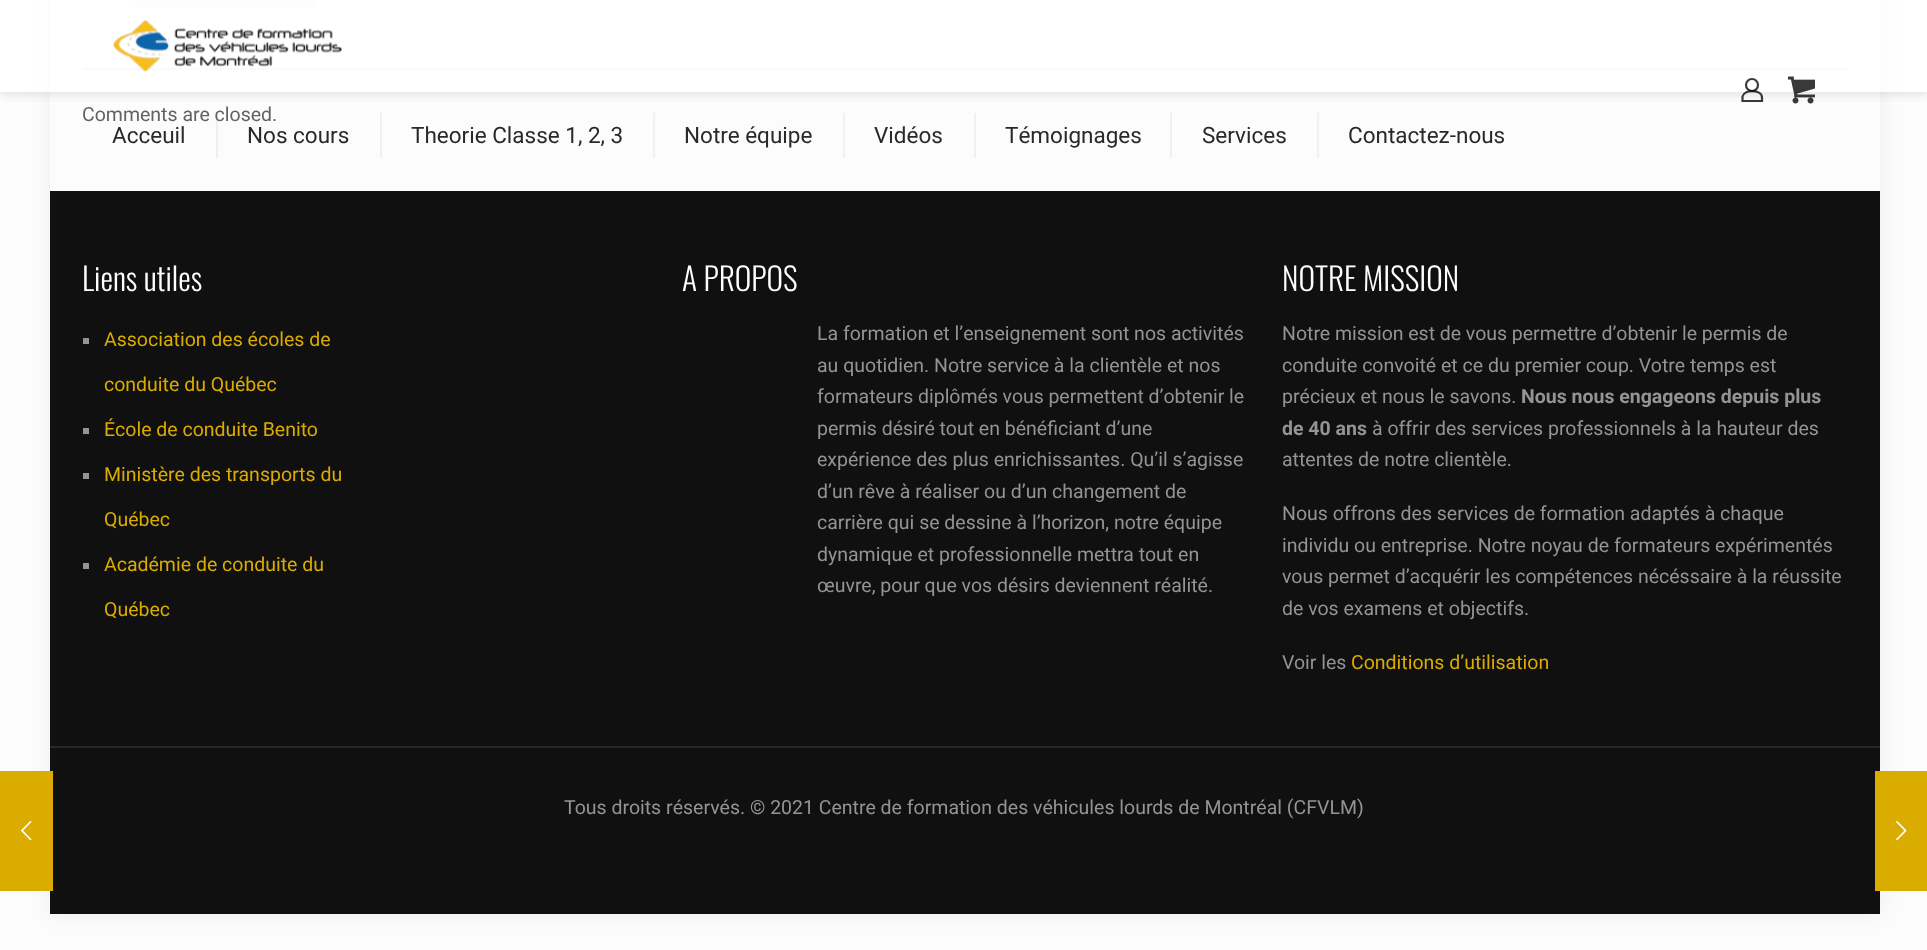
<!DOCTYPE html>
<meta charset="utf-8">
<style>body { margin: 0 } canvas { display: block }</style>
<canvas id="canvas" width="1927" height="950"></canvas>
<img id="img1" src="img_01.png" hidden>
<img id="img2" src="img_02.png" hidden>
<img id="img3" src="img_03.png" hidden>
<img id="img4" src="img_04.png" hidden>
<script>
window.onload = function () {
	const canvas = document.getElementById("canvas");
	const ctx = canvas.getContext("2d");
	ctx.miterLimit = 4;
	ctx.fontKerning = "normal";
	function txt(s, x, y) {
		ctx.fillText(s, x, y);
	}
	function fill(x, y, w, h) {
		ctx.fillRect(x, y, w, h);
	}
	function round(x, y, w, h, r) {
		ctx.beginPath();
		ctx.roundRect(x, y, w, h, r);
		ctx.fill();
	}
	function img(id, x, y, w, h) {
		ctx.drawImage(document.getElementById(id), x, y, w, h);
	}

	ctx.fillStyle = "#FCFCFC";
	fill(0, 0, 1927, 950);
	ctx.fillStyle = "rgba(0, 0, 0, 0.06)";
	ctx.filter = "blur(11px)";
	ctx.beginPath();
	ctx.rect(50, -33, 1830, 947);
	ctx.fill();
	ctx.filter = "none";
	ctx.fillStyle = "#FCFCFC";
	fill(50, 0, 1830, 191);
	ctx.fillStyle = "#F7F7F7";
	round(128, -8, 187, 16, 8);
	ctx.fillStyle = "#E8E8E8";
	fill(83, 68, 1764, 2);
	ctx.save();
	ctx.beginPath();
	ctx.moveTo(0, 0);
	ctx.lineTo(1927, 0);
	ctx.lineTo(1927, 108);
	ctx.lineTo(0, 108);
	ctx.closePath();
	ctx.moveTo(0, 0);
	ctx.lineTo(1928, 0);
	ctx.lineTo(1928, 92);
	ctx.lineTo(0, 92);
	ctx.closePath();
	ctx.clip("evenodd");
	ctx.fillStyle = "rgba(0, 0, 0, 0.1)";
	ctx.filter = "blur(4px)";
	ctx.beginPath();
	ctx.rect(0, 3, 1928, 92);
	ctx.fill();
	ctx.filter = "none";
	ctx.restore();
	ctx.fillStyle = "rgba(255, 255, 255, 0.78)";
	fill(0, 0, 1927, 92);
	ctx.beginPath();
	ctx.arc(1752, 85, 6, 0, Math.PI * 2);
	ctx.strokeStyle = "#393939";
	ctx.lineWidth = 2.2;
	ctx.stroke();
	ctx.beginPath();
	ctx.moveTo(1762, 97.5);
	ctx.lineTo(1762, 101);
	ctx.lineTo(1742.5, 101);
	ctx.lineTo(1742.5, 96.5);
	ctx.bezierCurveTo(1744.5, 89, 1762, 89.5, 1762, 97.5);
	ctx.closePath();
	ctx.strokeStyle = "rgba(8, 8, 8, 0.8)";
	ctx.stroke();
	img("img1", 1788, 76, 27, 28);
	img("img2", 113, 20, 229, 52);
	ctx.fillStyle = "rgba(0, 0, 0, 0.05)";
	fill(216, 113, 2, 45);
	ctx.fillStyle = "#F0F0F0";
	fill(380, 113, 2, 45);
	fill(653, 113, 2, 45);
	fill(843, 113, 2, 45);
	fill(974, 113, 2, 45);
	fill(1170, 113, 2, 45);
	fill(1317, 113, 2, 45);
	ctx.fillStyle = "#101010";
	fill(50, 191, 1830, 723);
	ctx.fillStyle = "#949494";
	fill(83, 338, 6, 6);
	fill(83, 428, 6, 6);
	fill(83, 473, 6, 6);
	fill(83, 563, 6, 6);
	ctx.fillStyle = "#282828";
	fill(50, 746, 1830, 2);
	ctx.fillStyle = "#DBAC00";
	fill(0, 771, 53, 120);
	img("img3", 21, 820, 11, 21);
	fill(1875, 771, 52, 120);
	img("img4", 1896, 820, 11, 21);
	ctx.font = "19.5px Roboto";
	ctx.fillStyle = "#626262";
	txt("Comments are closed.", 82, 121);
	ctx.font = "22.5px Roboto";
	ctx.fillStyle = "#292929";
	txt("Acceuil", 112, 143);
	txt("Nos cours", 247, 143);
	txt("Theorie Classe 1, 2, 3", 411, 143);
	txt("Notre équipe", 684, 143);
	txt("Vidéos", 874, 143);
	txt("Témoignages", 1005, 143);
	txt("Services", 1202, 143);
	txt("Contactez-nous", 1348, 143);
	ctx.font = "300 31.5px Oswald";
	ctx.fillStyle = "#FFFFFF";
	txt("Liens utiles", 82, 291);
	ctx.font = "19.5px Roboto";
	ctx.fillStyle = "#DBAC00";
	txt("Association des écoles de", 104, 346);
	txt("conduite du Québec", 104, 391);
	txt("École de conduite Benito", 104, 436);
	txt("Ministère des transports du", 104, 481);
	txt("Québec", 104, 526);
	txt("Académie de conduite du", 104, 571);
	txt("Québec", 104, 616);
	ctx.font = "300 31.5px Oswald";
	ctx.fillStyle = "#FFFFFF";
	txt("A PROPOS", 682, 291);
	ctx.font = "19.5px Roboto";
	ctx.fillStyle = "#949494";
	txt("La formation et l’enseignement sont nos activités", 817, 340);
	txt("au quotidien. Notre service à la clientèle et nos", 817, 372);
	ctx.wordSpacing = "-0.25px";
	txt("formateurs diplômés vous permettent d’obtenir le", 817, 403);
	ctx.wordSpacing = "0px";
	txt("permis désiré tout en bénéficiant d’une", 817, 435);
	txt("expérience des plus enrichissantes. Qu’il s’agisse", 817, 466);
	txt("d’un rêve à réaliser ou d’un changement de", 817, 498);
	txt("carrière qui se dessine à l’horizon, notre équipe", 817, 529);
	txt("dynamique et professionnelle mettra tout en", 817, 561);
	txt("œuvre, pour que vos désirs deviennent réalité.", 817, 592);
	ctx.font = "300 31.5px Oswald";
	ctx.fillStyle = "#FFFFFF";
	txt("NOTRE MISSION", 1282, 291);
	ctx.wordSpacing = "-0.1px";
	ctx.font = "19.5px Roboto";
	ctx.fillStyle = "#949494";
	txt("Notre mission est de vous permettre d’obtenir le permis de", 1282, 340);
	ctx.wordSpacing = "0px";
	txt("conduite convoité et ce du premier coup. Votre temps est", 1282, 372);
	txt("précieux et nous le savons.", 1282, 403);
	ctx.font = "bold 19.5px Roboto";
	txt("Nous nous engageons depuis plus", 1521, 403);
	txt("de 40 ans", 1282, 435);
	ctx.font = "19.5px Roboto";
	txt("à offrir des services professionnels à la hauteur des", 1372, 435);
	txt("attentes de notre clientèle.", 1282, 466);
	txt("Nous offrons des services de formation adaptés à chaque", 1282, 520);
	txt("individu ou entreprise. Notre noyau de formateurs expérimentés", 1282, 552);
	txt("vous permet d’acquérir les compétences nécéssaire à la réussite", 1282, 583);
	txt("de vos examens et objectifs.", 1282, 615);
	txt("Voir les", 1282, 669);
	ctx.fillStyle = "#DBAC00";
	txt("Conditions d’utilisation", 1351, 669);
	ctx.fillStyle = "#949494";
	txt("Tous droits réservés. © 2021 Centre de formation des véhicules lourds de Montréal (CFVLM)", 564, 814);
};
</script>
